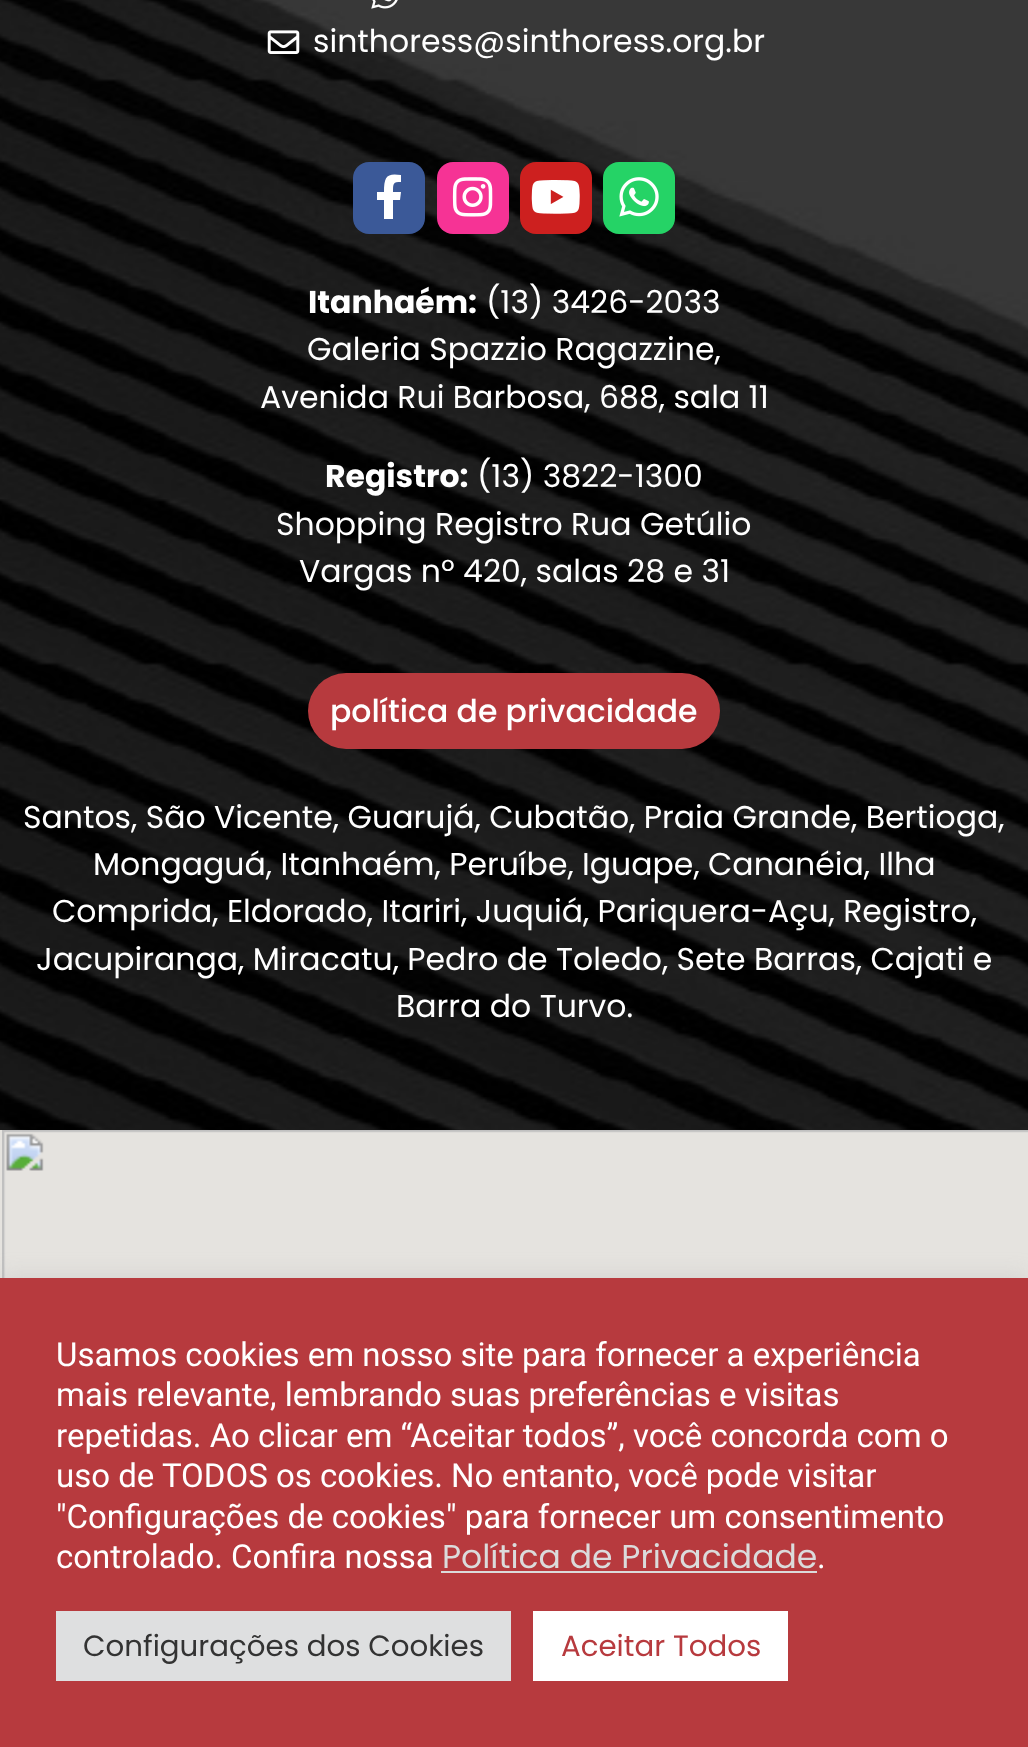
<!DOCTYPE html>
<meta charset="utf-8">
<style>body { margin: 0 } canvas { display: block }</style>
<canvas id="canvas" width="1028" height="1747"></canvas>
<img id="img1" src="img_01.png" hidden>
<img id="img2" src="img_02.png" hidden>
<img id="img3" src="img_03.png" hidden>
<img id="img4" src="img_04.png" hidden>
<img id="img5" src="img_05.png" hidden>
<img id="img6" src="img_06.png" hidden>
<img id="img7" src="img_07.png" hidden>
<script>
window.onload = function () {
	const canvas = document.getElementById("canvas");
	const ctx = canvas.getContext("2d");
	ctx.miterLimit = 4;
	ctx.fontKerning = "normal";
	function txt(s, x, y) {
		ctx.fillText(s, x, y);
	}
	function fill(x, y, w, h) {
		ctx.fillRect(x, y, w, h);
	}
	function round(x, y, w, h, r) {
		ctx.beginPath();
		ctx.roundRect(x, y, w, h, r);
		ctx.fill();
	}
	function img(id, x, y, w, h) {
		ctx.drawImage(document.getElementById(id), x, y, w, h);
	}

	ctx.fillStyle = "#FFFFFF";
	fill(0, 0, 1028, 1747);
	img("img1", 0, 0, 1028, 1130);
	img("img2", 371, 0, 27, 9);
	img("img3", 267, 30, 33, 24);
	ctx.fillStyle = "#3B5998";
	round(353, 162, 72, 72, 16);
	ctx.fillStyle = "#FFFFFF";
	ctx.beginPath();
	ctx.moveTo(400, 200);
	ctx.lineTo(393, 200);
	ctx.lineTo(393, 219);
	ctx.lineTo(384, 219);
	ctx.lineTo(384, 200);
	ctx.lineTo(377, 200);
	ctx.lineTo(377, 192);
	ctx.lineTo(384, 192);
	ctx.bezierCurveTo(384, 176, 387, 173, 401, 175);
	ctx.lineTo(401, 182);
	ctx.bezierCurveTo(393, 182, 393, 183, 393, 192);
	ctx.lineTo(401, 192);
	ctx.closePath();
	ctx.fill();
	ctx.fillStyle = "#F63395";
	round(437, 162, 72, 72, 16);
	img("img4", 452, 177, 41, 40);
	ctx.fillStyle = "#CD201F";
	round(520, 162, 72, 72, 16);
	img("img5", 531, 180, 49, 34);
	ctx.fillStyle = "#25D366";
	round(603, 162, 72, 72, 16);
	img("img6", 619, 177, 40, 40);
	ctx.fillStyle = "#B73A3E";
	round(308, 673, 412, 76, 38);
	img("img7", 0, 1130, 1028, 148);
	ctx.fillStyle = "rgba(172, 171, 171, 0.3)";
	ctx.filter = "blur(11px)";
	ctx.beginPath();
	ctx.rect(0, 1276, 1028, 470);
	ctx.fill();
	ctx.filter = "none";
	ctx.fillStyle = "#B73A3E";
	fill(0, 1278, 1028, 469);
	ctx.fillStyle = "#DBDBDB";
	fill(441, 1571, 376, 2);
	ctx.fillStyle = "#DEDFE0";
	fill(56, 1611, 455, 70);
	ctx.fillStyle = "#FFFFFF";
	fill(533, 1611, 255, 70);
	ctx.font = "31.5px Poppins";
	txt("sinthoress@sinthoress.org.br", 313, 52);
	ctx.font = "bold 31.5px Poppins";
	txt("Itanhaém:", 308, 313);
	ctx.font = "31.5px Poppins";
	txt("(13) 3426-2033", 486, 313);
	txt("Galeria Spazzio Ragazzine,", 307, 360);
	txt("Avenida Rui Barbosa, 688, sala 11", 260, 408);
	ctx.font = "bold 31.5px Poppins";
	txt("Registro:", 325, 487);
	ctx.font = "31.5px Poppins";
	txt("(13) 3822-1300", 477, 487);
	txt("Shopping Registro Rua Getúlio", 276, 535);
	txt("Vargas nº 420, salas 28 e 31", 299, 582);
	ctx.font = "500 31.5px Poppins";
	txt("política de privacidade", 330, 722);
	ctx.font = "31.5px Poppins";
	txt("Santos, São Vicente, Guarujá, Cubatão, Praia Grande, Bertioga,", 23, 828);
	txt("Mongaguá, Itanhaém, Peruíbe, Iguape, Cananéia, Ilha", 93, 875);
	txt("Comprida, Eldorado, Itariri, Juquiá, Pariquera-Açu, Registro,", 52, 922);
	txt("Jacupiranga, Miracatu, Pedro de Toledo, Sete Barras, Cajati e", 36, 970);
	txt("Barra do Turvo.", 396, 1017);
	ctx.font = "33px Roboto";
	txt("Usamos cookies em nosso site para fornecer a experiência", 56, 1366);
	txt("mais relevante, lembrando suas preferências e visitas", 56, 1406);
	txt("repetidas. Ao clicar em “Aceitar todos”, você concorda com o", 56, 1447);
	txt("uso de TODOS os cookies. No entanto, você pode visitar", 56, 1487);
	txt("\"Configurações de cookies\" para fornecer um consentimento", 56, 1528);
	txt("controlado. Confira nossa", 56, 1568);
	ctx.font = "33px Poppins";
	ctx.fillStyle = "#DBDBDB";
	txt("Política de Privacidade", 442, 1568);
	ctx.font = "33px Roboto";
	ctx.fillStyle = "#FFFFFF";
	txt(".", 817, 1568);
	ctx.font = "29.25px Poppins";
	ctx.fillStyle = "#333333";
	txt("Configurações dos Cookies", 83, 1656);
	ctx.fillStyle = "#B73A3E";
	txt("Aceitar Todos", 561, 1656);
};
</script>
